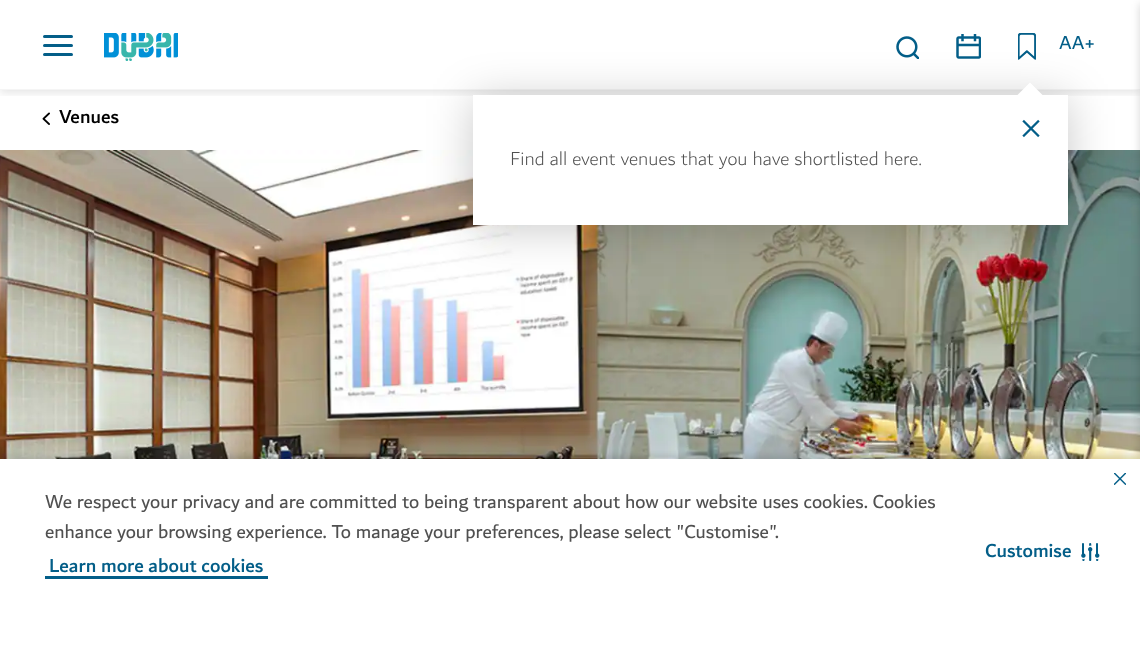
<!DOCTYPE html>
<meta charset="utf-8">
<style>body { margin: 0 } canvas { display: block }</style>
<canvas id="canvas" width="1140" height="646"></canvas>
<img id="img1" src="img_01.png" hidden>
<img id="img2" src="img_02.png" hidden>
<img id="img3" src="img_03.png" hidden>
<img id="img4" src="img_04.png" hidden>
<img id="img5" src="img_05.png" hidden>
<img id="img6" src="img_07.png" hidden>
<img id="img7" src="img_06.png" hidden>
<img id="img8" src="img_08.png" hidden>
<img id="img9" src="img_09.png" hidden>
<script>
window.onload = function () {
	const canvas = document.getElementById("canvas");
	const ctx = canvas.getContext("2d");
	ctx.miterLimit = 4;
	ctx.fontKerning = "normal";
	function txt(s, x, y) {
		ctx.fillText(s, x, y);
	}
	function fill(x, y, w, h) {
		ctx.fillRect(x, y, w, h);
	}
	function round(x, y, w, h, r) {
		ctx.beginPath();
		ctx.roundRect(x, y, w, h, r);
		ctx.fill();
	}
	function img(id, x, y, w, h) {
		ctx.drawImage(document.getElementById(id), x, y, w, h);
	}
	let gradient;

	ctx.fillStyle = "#FFFFFF";
	fill(0, 0, 1140, 646);
	img("img1", 42, 112, 8, 13);
	ctx.save();
	ctx.beginPath();
	ctx.rect(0, 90, 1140, 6);
	ctx.clip();
	ctx.fillStyle = "rgba(0, 0, 0, 0.1)";
	ctx.filter = "blur(4px)";
	ctx.beginPath();
	ctx.rect(0, 3, 1140, 90);
	ctx.fill();
	ctx.filter = "none";
	ctx.restore();
	ctx.fillStyle = "#F5F5F5";
	fill(0, 89, 1140, 1);
	ctx.fillStyle = "#035E88";
	round(43, 44, 30, 3, 1.5);
	round(43, 35, 30, 3, 1.5);
	round(43, 53, 30, 3, 1.5);
	img("img2", 104, 33, 74, 28);
	img("img3", 896, 36, 23, 23);
	img("img4", 956, 34, 25, 25);
	img("img5", 1018, 33, 18, 27);
	img("img6", 0, 150, 1140, 309);
	ctx.fillStyle = "rgba(0, 0, 0, 0.21)";
	ctx.filter = "blur(22.5px)";
	ctx.beginPath();
	ctx.rect(473, 99, 595, 130);
	ctx.fill();
	ctx.filter = "none";
	ctx.fillStyle = "#FFFFFF";
	fill(473, 95, 595, 130);
	ctx.beginPath();
	ctx.moveTo(1042.5, 95);
	ctx.lineTo(1017.5, 95);
	ctx.lineTo(1030, 82.5);
	ctx.closePath();
	ctx.fill();
	img("img7", 1022, 119, 18, 19);
	ctx.fillStyle = "rgba(0, 0, 0, 0.16)";
	ctx.filter = "blur(4px)";
	ctx.beginPath();
	ctx.rect(1140, 4, 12, 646);
	ctx.fill();
	ctx.filter = "none";
	ctx.fillStyle = "rgba(0, 0, 0, 0.11)";
	ctx.filter = "blur(3px)";
	ctx.beginPath();
	ctx.rect(0, 455, 1140, 188);
	ctx.fill();
	ctx.filter = "none";
	ctx.fillStyle = "#FFFFFF";
	fill(0, 459, 1140, 187);
	gradient = ctx.createLinearGradient(156, 586, 156, 549);
	gradient.addColorStop(0, "#FFFFFF");
	gradient.addColorStop(0.2, "#FFFFFF");
	gradient.addColorStop(0.2, "#035E88");
	gradient.addColorStop(0.27, "#035E88");
	gradient.addColorStop(0.27, "#FFFFFF");
	ctx.fillStyle = gradient;
	fill(45, 576, 223, 3);
	img("img8", 1114, 473, 12, 12);
	img("img9", 1081, 543, 19, 18);
	ctx.font = "500 20px 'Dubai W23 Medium'";
	ctx.fillStyle = "#000000";
	txt("Venues", 59, 123);
	ctx.font = "20px 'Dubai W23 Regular'";
	ctx.fillStyle = "#035E88";
	txt("AA+", 1059, 49);
	ctx.font = "300 20px 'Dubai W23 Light'";
	ctx.fillStyle = "#505050";
	txt("Find all event venues that you have shortlisted here.", 510, 165);
	ctx.font = "20px 'Dubai W23 Regular'";
	txt("We respect your privacy and are committed to being transparent about how our website uses cookies. Cookies", 45, 508);
	txt("enhance your browsing experience. To manage your preferences, please select \"Customise\".", 45, 538);
	ctx.font = "500 20px 'Dubai W23 Medium'";
	ctx.fillStyle = "#035E88";
	txt("Learn more about cookies", 49, 572);
	txt("Customise", 985, 557);
};
</script>
